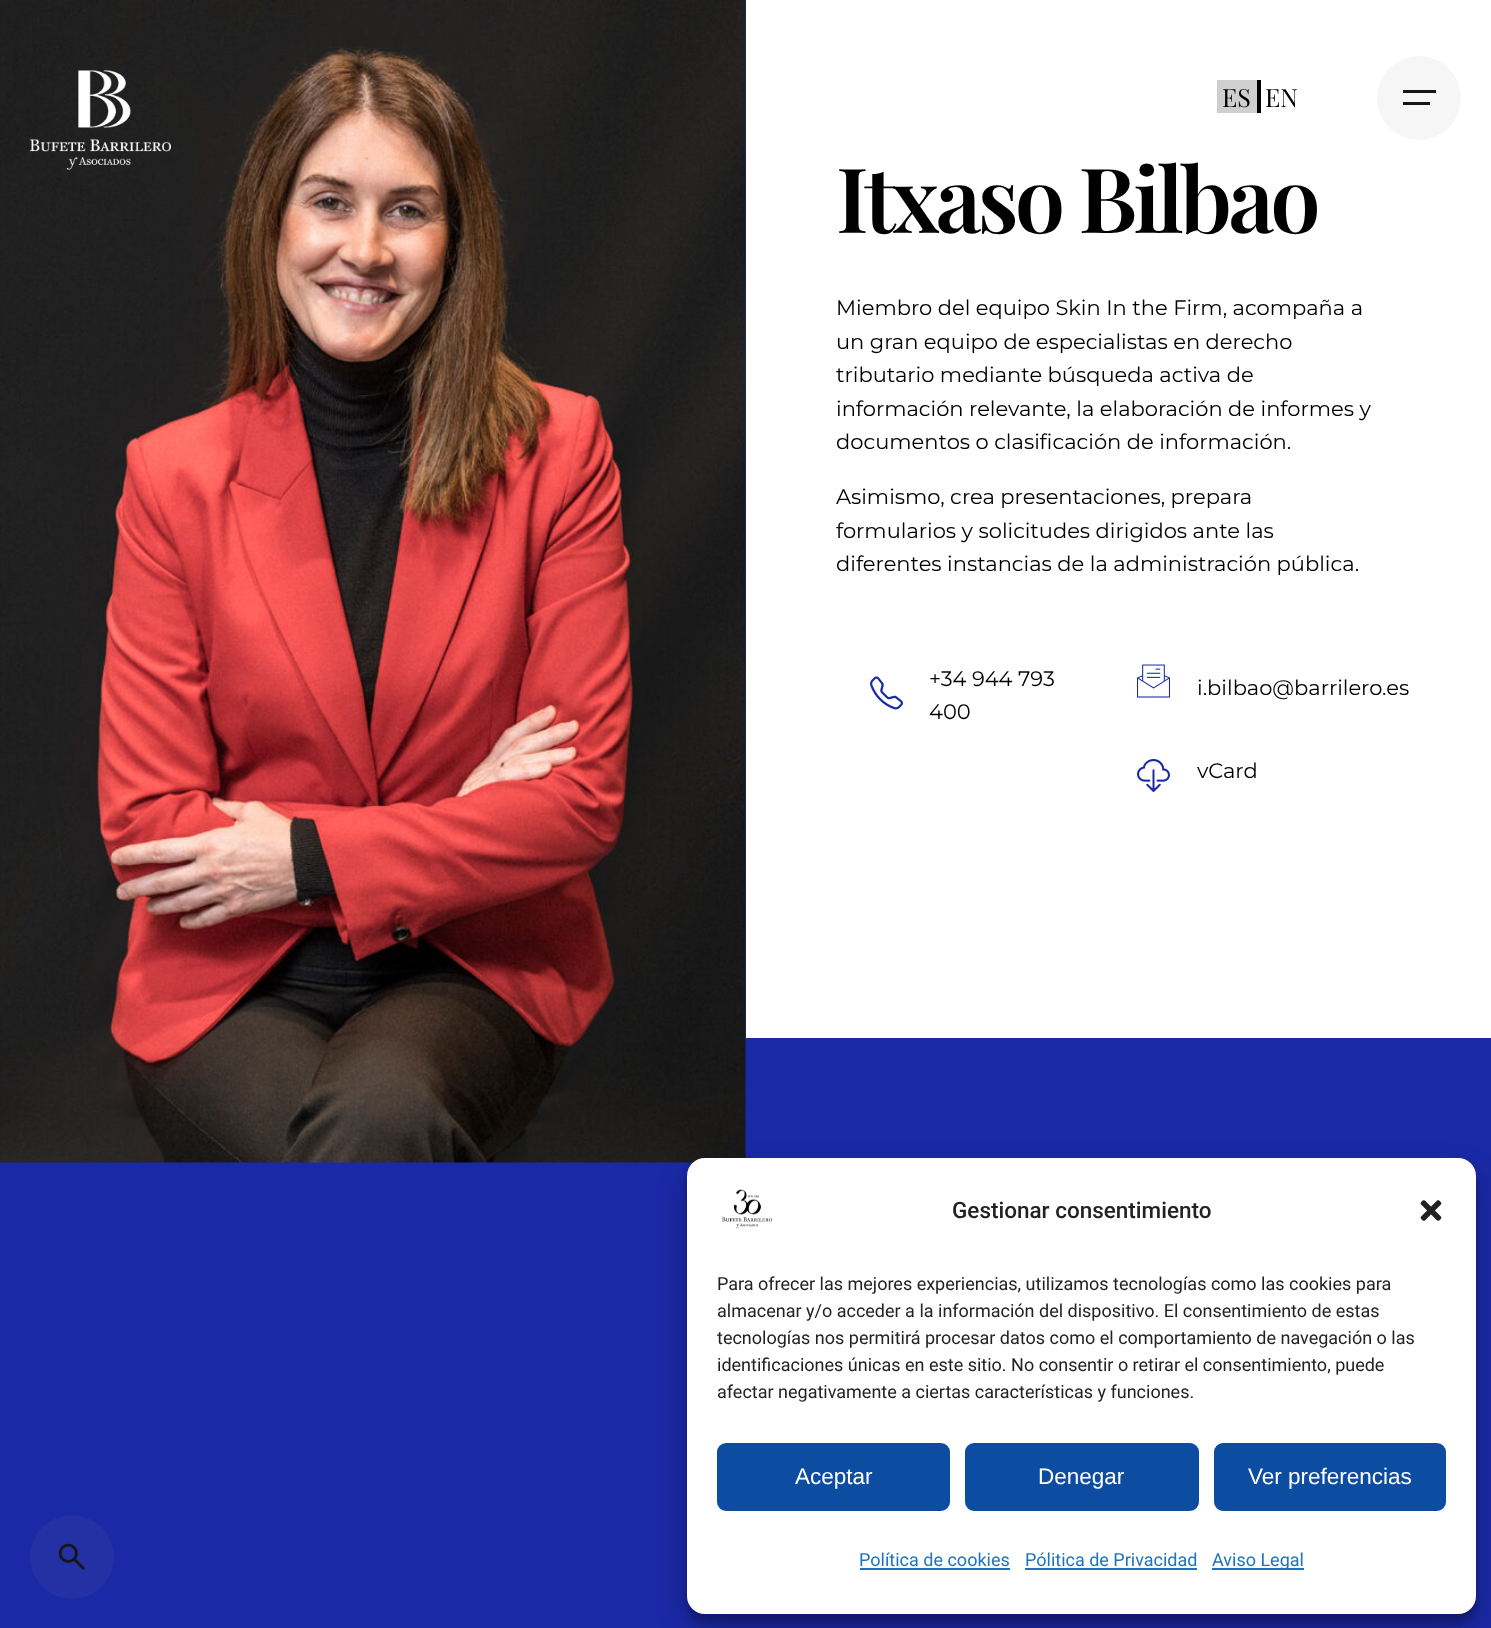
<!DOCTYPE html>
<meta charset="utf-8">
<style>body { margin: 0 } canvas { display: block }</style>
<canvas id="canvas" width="1491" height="1628"></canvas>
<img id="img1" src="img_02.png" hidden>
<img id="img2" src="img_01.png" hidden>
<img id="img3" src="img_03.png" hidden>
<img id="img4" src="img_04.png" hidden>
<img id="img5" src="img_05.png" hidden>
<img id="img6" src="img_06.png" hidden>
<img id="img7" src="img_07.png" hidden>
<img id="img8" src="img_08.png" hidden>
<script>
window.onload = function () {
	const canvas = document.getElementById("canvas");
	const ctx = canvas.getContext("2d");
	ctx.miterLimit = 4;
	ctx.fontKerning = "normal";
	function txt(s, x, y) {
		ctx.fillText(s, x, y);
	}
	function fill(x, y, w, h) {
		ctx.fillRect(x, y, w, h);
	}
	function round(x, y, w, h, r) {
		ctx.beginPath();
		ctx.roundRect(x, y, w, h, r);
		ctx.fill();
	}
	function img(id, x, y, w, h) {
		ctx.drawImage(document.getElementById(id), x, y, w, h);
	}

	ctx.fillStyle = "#FFFFFF";
	fill(0, 0, 1491, 1628);
	ctx.fillStyle = "#1A29A5";
	fill(0, 0, 746, 1628);
	img("img1", 0, 0, 746, 1163);
	img("img2", 30, 70, 141, 100);
	ctx.fillStyle = "#CFCFCF";
	fill(1217, 80, 40, 33);
	ctx.fillStyle = "#000000";
	fill(1257, 80, 4, 33);
	ctx.fillStyle = "#F6F6F6";
	ctx.beginPath();
	ctx.arc(1419, 98, 42, 0, Math.PI * 2);
	ctx.fill();
	ctx.fillStyle = "#161519";
	fill(1403, 90, 33, 3);
	fill(1403, 102, 27, 3);
	img("img3", 870, 676, 33, 34);
	img("img4", 1137, 664, 33, 34);
	img("img5", 1137, 759, 33, 33);
	ctx.fillStyle = "#1A29A5";
	fill(746, 1038, 745, 590);
	ctx.fillStyle = "#2331A4";
	ctx.beginPath();
	ctx.arc(72, 1557, 42, 0, Math.PI * 2);
	ctx.fill();
	img("img6", 58, 1543, 28, 28);
	ctx.fillStyle = "rgba(0, 0, 0, 0.23)";
	ctx.filter = "blur(4.5px)";
	ctx.beginPath();
	ctx.roundRect(687, 1167, 789, 456, 18);
	ctx.fill();
	ctx.filter = "none";
	ctx.fillStyle = "rgba(0, 0, 0, 0.19)";
	ctx.filter = "blur(15px)";
	ctx.beginPath();
	ctx.roundRect(687, 1173, 789, 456, 18);
	ctx.fill();
	ctx.filter = "none";
	ctx.fillStyle = "#FFFFFF";
	round(687, 1158, 789, 456, 18);
	img("img7", 722, 1189, 50, 40);
	img("img8", 1420, 1200, 22, 21);
	ctx.fillStyle = "#0C4DA2";
	ctx.beginPath();
	ctx.roundRect(718, 1444, 231, 66, 8);
	ctx.fill();
	ctx.strokeStyle = "#0C4DA2";
	ctx.lineWidth = 2;
	ctx.stroke();
	ctx.beginPath();
	ctx.roundRect(966, 1444, 232, 66, 8);
	ctx.fill();
	ctx.stroke();
	ctx.beginPath();
	ctx.roundRect(1215, 1444, 230, 66, 8);
	ctx.fill();
	ctx.stroke();
	ctx.fillStyle = "#1E73BE";
	fill(860, 1568, 150, 2);
	fill(1025, 1568, 172, 2);
	fill(1212, 1568, 92, 2);
	ctx.font = "25px Playfair Display";
	ctx.fillStyle = "#000000";
	txt("ES", 1222, 107);
	txt("EN", 1265, 107);
	ctx.letterSpacing = "-4px";
	ctx.font = "600 90px Playfair Display";
	txt("Itxaso Bilbao", 836, 233);
	ctx.letterSpacing = "0px";
	ctx.font = "21px Montserrat";
	txt("Miembro del equipo Skin In the Firm, acompaña a", 836, 315);
	txt("un gran equipo de especialistas en derecho", 836, 349);
	txt("tributario mediante búsqueda activa de", 836, 382);
	txt("información relevante, la elaboración de informes y", 836, 416);
	txt("documentos o clasificación de información.", 836, 449);
	txt("Asimismo, crea presentaciones, prepara", 836, 504);
	txt("formularios y solicitudes dirigidos ante las", 836, 538);
	txt("diferentes instancias de la administración pública.", 836, 571);
	txt("+34 944 793", 929, 686);
	txt("400", 929, 719);
	txt("i.bilbao@barrilero.es", 1197, 695);
	txt("vCard", 1197, 778);
	ctx.font = "500 22.5px Roboto";
	ctx.fillStyle = "#222222";
	txt("Gestionar consentimiento", 952, 1218);
	ctx.font = "18px Roboto";
	txt("Para ofrecer las mejores experiencias, utilizamos tecnologías como las cookies para", 717, 1290);
	txt("almacenar y/o acceder a la información del dispositivo. El consentimiento de estas", 717, 1317);
	txt("tecnologías nos permitirá procesar datos como el comportamiento de navegación o las", 717, 1344);
	txt("identificaciones únicas en este sitio. No consentir o retirar el consentimiento, puede", 717, 1371);
	txt("afectar negativamente a ciertas características y funciones.", 717, 1398);
	ctx.font = "22.5px Liberation Sans";
	ctx.fillStyle = "#FFFFFF";
	txt("Aceptar", 795, 1484);
	txt("Denegar", 1038, 1484);
	txt("Ver preferencias", 1248, 1484);
	ctx.font = "18px Roboto";
	ctx.fillStyle = "#1E73BE";
	txt("Política de cookies", 859, 1566);
	txt("Pólitica de Privacidad", 1025, 1566);
	txt("Aviso Legal", 1212, 1566);
};
</script>
